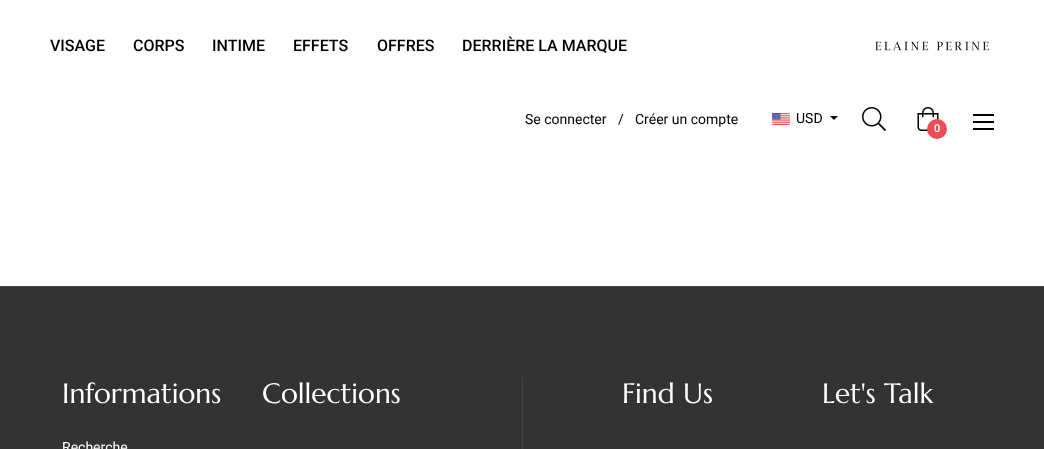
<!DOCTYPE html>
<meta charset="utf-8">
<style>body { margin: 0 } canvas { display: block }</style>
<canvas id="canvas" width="1044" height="449"></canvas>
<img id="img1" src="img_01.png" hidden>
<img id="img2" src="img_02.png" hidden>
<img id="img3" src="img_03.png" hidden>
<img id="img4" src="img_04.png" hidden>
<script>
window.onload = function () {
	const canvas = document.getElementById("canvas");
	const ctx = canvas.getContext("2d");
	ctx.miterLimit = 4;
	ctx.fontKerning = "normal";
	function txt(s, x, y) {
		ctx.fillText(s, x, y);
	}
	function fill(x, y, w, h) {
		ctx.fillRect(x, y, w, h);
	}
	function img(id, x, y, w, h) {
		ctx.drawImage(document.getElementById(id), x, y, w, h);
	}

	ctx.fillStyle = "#FFFFFF";
	fill(0, 0, 1044, 449);
	img("img1", 875, 41, 114, 10);
	img("img2", 772, 113, 18, 12);
	ctx.fillStyle = "#000000";
	ctx.beginPath();
	ctx.moveTo(830, 116);
	ctx.lineTo(838, 116);
	ctx.lineTo(834, 120);
	ctx.closePath();
	ctx.fill();
	img("img3", 862, 107, 24, 24);
	img("img4", 917, 107, 22, 24);
	ctx.fillStyle = "#EB4D55";
	ctx.beginPath();
	ctx.arc(937, 129, 10, 0, Math.PI * 2);
	ctx.fill();
	ctx.fillStyle = "#000000";
	fill(973, 114, 21, 2);
	fill(973, 121, 21, 2);
	fill(973, 128, 21, 2);
	ctx.fillStyle = "#333333";
	fill(0, 287, 1044, 162);
	ctx.fillStyle = "#444444";
	fill(0, 286, 1044, 1);
	fill(522, 377, 1, 72);
	ctx.font = "500 16px Roboto";
	ctx.fillStyle = "#000000";
	txt("VISAGE", 50, 51);
	txt("CORPS", 133, 51);
	txt("INTIME", 212, 51);
	txt("EFFETS", 293, 51);
	txt("OFFRES", 377, 51);
	txt("DERRIÈRE LA MARQUE", 462, 51);
	ctx.font = "14px Roboto";
	txt("Se connecter", 525, 124);
	txt("/", 618, 124);
	txt("Créer un compte", 635, 124);
	txt("USD", 796, 123);
	ctx.font = "600 11px Roboto";
	ctx.fillStyle = "#FFFFFF";
	txt("0", 934, 132);
	ctx.font = "28px Marcellus";
	txt("Informations", 62, 403);
	ctx.font = "14px Roboto";
	txt("Recherche", 62, 452);
	ctx.font = "28px Marcellus";
	txt("Collections", 262, 403);
	txt("Find Us", 622, 403);
	txt("Let's Talk", 822, 403);
};
</script>
